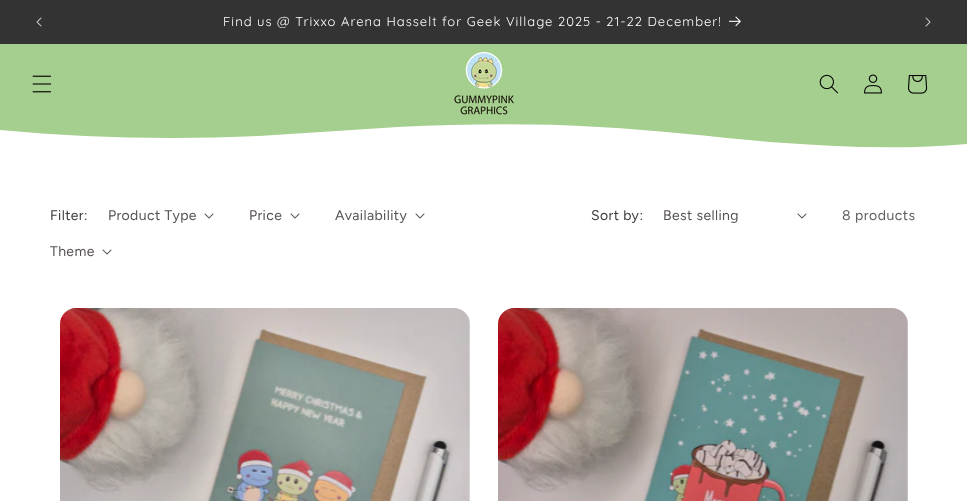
<!DOCTYPE html>
<meta charset="utf-8">
<style>body { margin: 0 } canvas { display: block }</style>
<canvas id="canvas" width="967" height="501"></canvas>
<img id="img1" src="img_01.png" hidden>
<img id="img2" src="img_02.png" hidden>
<img id="img3" src="img_03.png" hidden>
<img id="img4" src="img_04.png" hidden>
<img id="img5" src="img_05.png" hidden>
<img id="img6" src="img_06.png" hidden>
<img id="img7" src="img_07.png" hidden>
<img id="img8" src="img_08.png" hidden>
<img id="img9" src="img_09.png" hidden>
<img id="img10" src="img_10.png" hidden>
<img id="img11" src="img_11.png" hidden>
<script>
window.onload = function () {
	const canvas = document.getElementById("canvas");
	const ctx = canvas.getContext("2d");
	ctx.miterLimit = 4;
	ctx.fontKerning = "normal";
	function txt(s, x, y) {
		ctx.fillText(s, x, y);
	}
	function fill(x, y, w, h) {
		ctx.fillRect(x, y, w, h);
	}
	function img(id, x, y, w, h) {
		ctx.drawImage(document.getElementById(id), x, y, w, h);
	}

	ctx.fillStyle = "#FFFFFF";
	fill(0, 0, 967, 501);
	ctx.fillStyle = "#333333";
	fill(0, 0, 967, 44);
	img("img1", 36, 17, 6, 10);
	img("img2", 729, 16, 12, 11);
	img("img3", 925, 17, 6, 10);
	ctx.fillStyle = "#A5CF8E";
	fill(0, 44, 967, 80);
	img("img4", 32, 75, 20, 18);
	img("img5", 454, 52, 60, 63);
	img("img6", 819, 74, 19, 20);
	img("img7", 864, 74, 18, 20);
	img("img8", 908, 75, 20, 19);
	ctx.beginPath();
	ctx.moveTo(259, 136);
	ctx.lineTo(398, 127);
	ctx.bezierCurveTo(465, 124, 532, 123, 599, 127);
	ctx.bezierCurveTo(657, 130, 713, 137, 770, 142);
	ctx.bezierCurveTo(836, 147, 902, 150, 967, 144);
	ctx.lineTo(967, 124);
	ctx.lineTo(0, 124);
	ctx.lineTo(0, 130);
	ctx.bezierCurveTo(83, 138, 172, 140, 259, 136);
	ctx.closePath();
	ctx.fill();
	img("img9", 204, 213, 10, 6);
	img("img9", 290, 213, 10, 6);
	img("img9", 415, 213, 10, 6);
	img("img9", 102, 249, 10, 6);
	img("img9", 797, 213, 10, 6);
	img("img10", 60, 308, 410, 193);
	img("img11", 498, 308, 410, 193);
	ctx.letterSpacing = "1px";
	ctx.font = "13px Quicksand";
	ctx.fillStyle = "#FFFFFF";
	txt("Find us @ Trixxo Arena Hasselt for Geek Village 2025 - 21-22 December!", 223, 26);
	ctx.letterSpacing = "0.4px";
	ctx.font = "14px Figtree";
	ctx.fillStyle = "#3F3939";
	txt("Filter:", 50, 220);
	ctx.fillStyle = "#565050";
	txt("Product Type", 108, 220);
	txt("Price", 249, 220);
	txt("Availability", 335, 220);
	txt("Theme", 50, 256);
	ctx.fillStyle = "#3F3939";
	txt("Sort by:", 591, 220);
	ctx.fillStyle = "#565050";
	txt("Best selling", 663, 220);
	ctx.letterSpacing = "0.5px";
	ctx.fillStyle = "#615C5C";
	txt("8 products", 842, 220);
};
</script>
